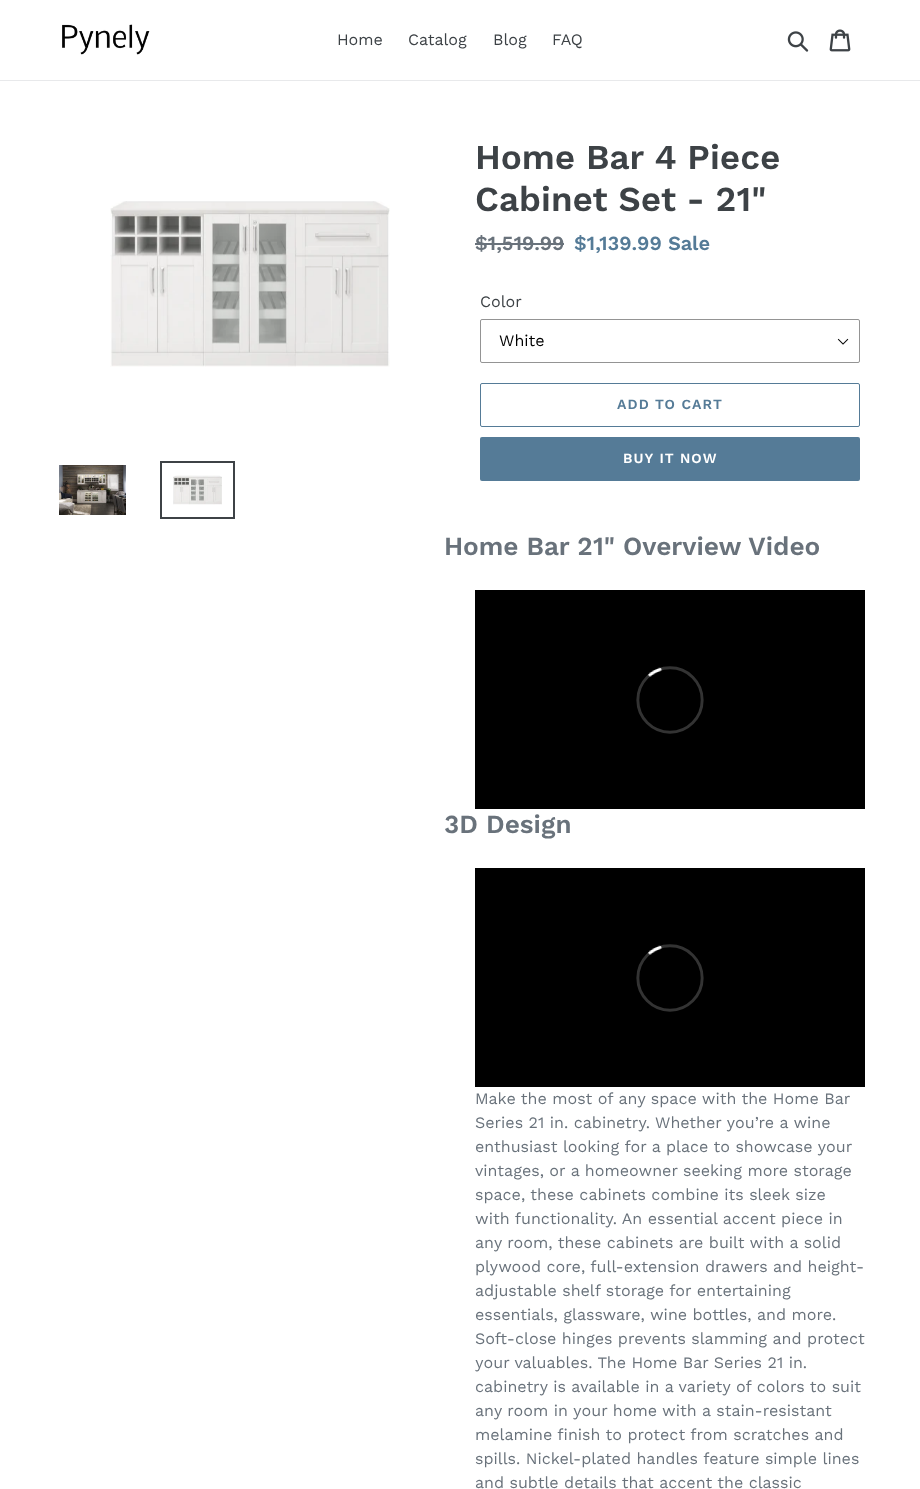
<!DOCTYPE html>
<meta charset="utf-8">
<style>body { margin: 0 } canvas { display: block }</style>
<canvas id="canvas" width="920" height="1489"></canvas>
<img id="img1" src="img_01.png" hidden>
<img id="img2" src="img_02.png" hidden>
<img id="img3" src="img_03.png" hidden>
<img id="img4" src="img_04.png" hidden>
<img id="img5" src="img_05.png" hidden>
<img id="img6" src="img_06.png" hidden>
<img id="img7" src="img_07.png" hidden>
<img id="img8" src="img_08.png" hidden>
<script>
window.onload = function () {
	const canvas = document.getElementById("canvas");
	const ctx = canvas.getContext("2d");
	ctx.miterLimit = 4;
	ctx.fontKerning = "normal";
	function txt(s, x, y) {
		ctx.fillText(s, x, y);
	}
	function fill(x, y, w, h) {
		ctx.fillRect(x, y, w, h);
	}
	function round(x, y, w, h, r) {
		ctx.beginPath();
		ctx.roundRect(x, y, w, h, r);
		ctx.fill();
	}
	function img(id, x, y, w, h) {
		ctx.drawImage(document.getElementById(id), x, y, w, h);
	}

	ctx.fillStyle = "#FFFFFF";
	fill(0, 0, 920, 1489);
	ctx.fillStyle = "#E8E9EB";
	fill(0, 80, 920, 1);
	img("img1", 62, 24, 88, 31);
	img("img2", 787, 31, 22, 21);
	img("img3", 829, 29, 22, 23);
	img("img4", 110, 201, 280, 166);
	img("img5", 59, 465, 67, 50);
	ctx.strokeStyle = "#3D4246";
	ctx.lineWidth = 2;
	ctx.strokeRect(161, 462, 73, 56);
	img("img6", 173, 475, 49, 30);
	ctx.fillStyle = "#69727B";
	fill(475, 243, 89, 2);
	img("img7", 837, 338, 12, 7);
	ctx.beginPath();
	ctx.roundRect(480.5, 319.5, 379, 43, 1.5);
	ctx.strokeStyle = "#949494";
	ctx.lineWidth = 1;
	ctx.stroke();
	ctx.beginPath();
	ctx.roundRect(480.5, 383.5, 379, 43, 1.5);
	ctx.strokeStyle = "#557B97";
	ctx.stroke();
	ctx.fillStyle = "#557B97";
	round(480, 437, 380, 44, 2);
	img("img8", 475, 590, 390, 219);
	img("img8", 475, 868, 390, 219);
	ctx.font = "16px Work Sans";
	ctx.fillStyle = "#3D4246";
	txt("Home", 337, 45);
	txt("Catalog", 408, 45);
	txt("Blog", 493, 45);
	txt("FAQ", 552, 45);
	ctx.font = "600 35px Work Sans";
	txt("Home Bar 4 Piece", 475, 169);
	txt("Cabinet Set - 21\"", 475, 211);
	ctx.font = "600 20px Work Sans";
	ctx.fillStyle = "#69727B";
	txt("$1,519.99", 475, 250);
	ctx.fillStyle = "#557B97";
	txt("$1,139.99 Sale", 574, 250);
	ctx.font = "16px Work Sans";
	ctx.fillStyle = "#3D4246";
	txt("Color", 480, 307);
	ctx.fillStyle = "#000000";
	txt("White", 499, 346);
	ctx.letterSpacing = "1.1px";
	ctx.font = "600 14px Work Sans";
	ctx.fillStyle = "#557B97";
	txt("ADD TO CART", 617, 409);
	ctx.fillStyle = "#FFFFFF";
	txt("BUY IT NOW", 623, 463);
	ctx.letterSpacing = "0px";
	ctx.font = "600 26px Work Sans";
	ctx.fillStyle = "#69727B";
	txt("Home Bar 21\" Overview Video", 444, 555);
	txt("3D Design", 444, 833);
	ctx.font = "16px Work Sans";
	txt("Make the most of any space with the Home Bar", 475, 1104);
	txt("Series 21 in. cabinetry. Whether you’re a wine", 475, 1128);
	txt("enthusiast looking for a place to showcase your", 475, 1152);
	txt("vintages, or a homeowner seeking more storage", 475, 1176);
	txt("space, these cabinets combine its sleek size", 475, 1200);
	txt("with functionality. An essential accent piece in", 475, 1224);
	txt("any room, these cabinets are built with a solid", 475, 1248);
	txt("plywood core, full-extension drawers and height-", 475, 1272);
	txt("adjustable shelf storage for entertaining", 475, 1296);
	txt("essentials, glassware, wine bottles, and more.", 475, 1320);
	txt("Soft-close hinges prevents slamming and protect", 475, 1344);
	txt("your valuables. The Home Bar Series 21 in.", 475, 1368);
	txt("cabinetry is available in a variety of colors to suit", 475, 1392);
	txt("any room in your home with a stain-resistant", 475, 1416);
	txt("melamine finish to protect from scratches and", 475, 1440);
	txt("spills. Nickel-plated handles feature simple lines", 475, 1464);
	txt("and subtle details that accent the classic", 475, 1488);
};
</script>
